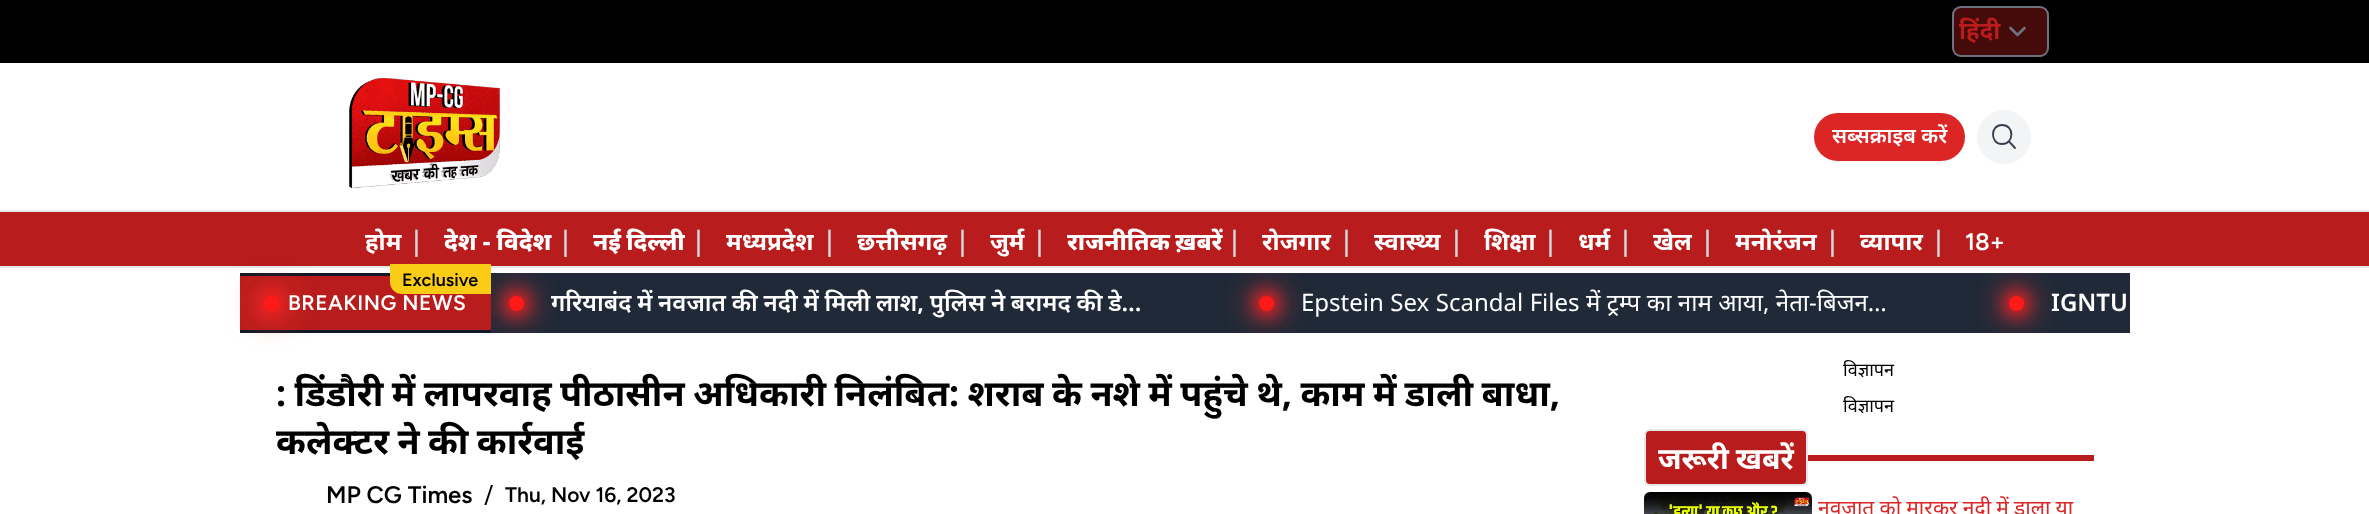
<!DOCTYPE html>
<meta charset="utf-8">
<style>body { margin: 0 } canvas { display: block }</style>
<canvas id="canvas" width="2369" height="514"></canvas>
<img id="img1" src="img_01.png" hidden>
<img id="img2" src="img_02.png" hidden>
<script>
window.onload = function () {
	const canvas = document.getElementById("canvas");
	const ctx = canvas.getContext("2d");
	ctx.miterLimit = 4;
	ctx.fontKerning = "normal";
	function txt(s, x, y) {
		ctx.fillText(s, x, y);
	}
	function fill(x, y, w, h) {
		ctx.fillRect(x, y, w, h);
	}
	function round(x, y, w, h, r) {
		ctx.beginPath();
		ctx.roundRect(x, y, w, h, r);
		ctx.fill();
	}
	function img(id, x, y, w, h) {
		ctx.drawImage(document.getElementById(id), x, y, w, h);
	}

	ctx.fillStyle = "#FFFFFF";
	fill(0, 0, 2369, 514);
	ctx.fillStyle = "#000000";
	fill(0, 0, 2369, 63);
	ctx.fillStyle = "#450A0A";
	round(1952, 6, 97, 51, 9);
	ctx.beginPath();
	ctx.moveTo(2010.5, 28);
	ctx.lineTo(2017.5, 35);
	ctx.lineTo(2024.5, 28);
	ctx.strokeStyle = "#6B7280";
	ctx.lineWidth = 2.7;
	ctx.lineCap = "round";
	ctx.lineJoin = "round";
	ctx.stroke();
	ctx.beginPath();
	ctx.roundRect(1953, 7, 95, 49, 8);
	ctx.lineWidth = 2;
	ctx.lineJoin = "miter";
	ctx.stroke();
	ctx.fillStyle = "#E5E7EB";
	fill(0, 266, 2369, 2);
	img("img1", 349, 78, 151, 111);
	ctx.fillStyle = "rgba(0, 0, 0, 0.05)";
	ctx.filter = "blur(1.5px)";
	ctx.beginPath();
	ctx.roundRect(1814, 114, 151, 48, 24);
	ctx.fill();
	ctx.filter = "none";
	ctx.fillStyle = "#DC2626";
	round(1814, 113, 151, 48, 24);
	ctx.fillStyle = "#F3F4F6";
	ctx.beginPath();
	ctx.arc(2004, 137, 27, 0, Math.PI * 2);
	ctx.fill();
	ctx.beginPath();
	ctx.moveTo(2015, 148);
	ctx.lineTo(2010, 142.5);
	ctx.moveTo(2002, 144);
	ctx.bezierCurveTo(1990, 144, 1990, 125, 2002, 125);
	ctx.bezierCurveTo(2014.5, 125, 2014.5, 144, 2002, 144);
	ctx.closePath();
	ctx.strokeStyle = "#374151";
	ctx.lineWidth = 1.9;
	ctx.lineJoin = "round";
	ctx.stroke();
	ctx.fillStyle = "#B91C1C";
	fill(0, 212, 2369, 54);
	ctx.fillStyle = "#E5E7EB";
	fill(0, 210, 2369, 2);
	ctx.fillStyle = "#111827";
	fill(240, 273, 251, 60);
	ctx.fillStyle = "#B91C1C";
	fill(240, 276, 251, 54);
	ctx.fillStyle = "#FF3B3B";
	ctx.filter = "blur(15px)";
	ctx.beginPath();
	ctx.roundRect(258, 290, 27, 27, 13.5);
	ctx.fill();
	ctx.filter = "none";
	ctx.fillStyle = "#FF1A1A";
	ctx.filter = "blur(7.5px)";
	ctx.beginPath();
	ctx.roundRect(261, 293, 21, 21, 10.5);
	ctx.fill();
	ctx.filter = "none";
	ctx.beginPath();
	ctx.arc(271.5, 303.5, 7.5, 0, Math.PI * 2);
	ctx.fill();
	ctx.fillStyle = "#FACC15";
	ctx.beginPath();
	ctx.roundRect(390, 264, 101, 30, [0, 0, 0, 12]);
	ctx.fill();
	ctx.fillStyle = "#1F2937";
	fill(491, 273, 1639, 60);
	ctx.save();
	ctx.beginPath();
	ctx.rect(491, 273, 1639, 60);
	ctx.clip();
	ctx.fillStyle = "#FF3B3B";
	ctx.filter = "blur(15px)";
	ctx.beginPath();
	ctx.roundRect(503, 290, 27, 27, 13.5);
	ctx.fill();
	ctx.filter = "none";
	ctx.restore();
	ctx.fillStyle = "#FF1A1A";
	ctx.filter = "blur(7.5px)";
	ctx.beginPath();
	ctx.roundRect(506, 293, 21, 21, 10.5);
	ctx.fill();
	ctx.filter = "none";
	ctx.beginPath();
	ctx.arc(516.5, 303.5, 7.5, 0, Math.PI * 2);
	ctx.fill();
	ctx.save();
	ctx.beginPath();
	ctx.rect(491, 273, 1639, 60);
	ctx.clip();
	ctx.fillStyle = "#FF3B3B";
	ctx.filter = "blur(15px)";
	ctx.beginPath();
	ctx.roundRect(1253, 290, 27, 27, 13.5);
	ctx.fill();
	ctx.filter = "none";
	ctx.restore();
	ctx.filter = "blur(7.5px)";
	ctx.beginPath();
	ctx.roundRect(1256, 293, 21, 21, 10.5);
	ctx.fill();
	ctx.filter = "none";
	ctx.beginPath();
	ctx.arc(1266.5, 303.5, 7.5, 0, Math.PI * 2);
	ctx.fill();
	ctx.save();
	ctx.beginPath();
	ctx.rect(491, 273, 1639, 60);
	ctx.clip();
	ctx.fillStyle = "#FF3B3B";
	ctx.filter = "blur(15px)";
	ctx.beginPath();
	ctx.roundRect(2003, 290, 27, 27, 13.5);
	ctx.fill();
	ctx.filter = "none";
	ctx.restore();
	ctx.filter = "blur(7.5px)";
	ctx.beginPath();
	ctx.roundRect(2006, 293, 21, 21, 10.5);
	ctx.fill();
	ctx.filter = "none";
	ctx.beginPath();
	ctx.arc(2016.5, 303.5, 7.5, 0, Math.PI * 2);
	ctx.fill();
	ctx.fillStyle = "#B91C1C";
	ctx.beginPath();
	ctx.roundRect(1645, 430, 162, 55, 5);
	ctx.fill();
	ctx.strokeStyle = "#E5E7EB";
	ctx.lineWidth = 2;
	ctx.lineJoin = "miter";
	ctx.stroke();
	fill(1808, 455, 286, 6);
	img("img2", 1644, 492, 168, 22);
	ctx.font = "bold 24px Noto Sans";
	txt("हिंदी", 1959, 39);
	ctx.font = "600 21px Noto Sans";
	ctx.fillStyle = "#FFFFFF";
	txt("सब्सक्राइब करें", 1832, 143);
	ctx.font = "bold 24px Noto Sans";
	txt("होम", 365, 250);
	ctx.font = "600 27px Figtree";
	ctx.fillStyle = "#D1D5DB";
	txt("|", 413, 251);
	ctx.font = "800 24px Noto Sans";
	ctx.fillStyle = "#FFFFFF";
	txt("देश - विदेश", 444, 250);
	ctx.font = "600 27px Figtree";
	ctx.fillStyle = "#D1D5DB";
	txt("|", 562, 251);
	ctx.wordSpacing = "-1px";
	ctx.font = "800 24px Noto Sans";
	ctx.fillStyle = "#FFFFFF";
	txt("नई दिल्ली", 593, 250);
	ctx.wordSpacing = "0px";
	ctx.font = "600 27px Figtree";
	ctx.fillStyle = "#D1D5DB";
	txt("|", 695, 251);
	ctx.font = "bold 24px Noto Sans";
	ctx.fillStyle = "#FFFFFF";
	txt("मध्यप्रदेश", 726, 250);
	ctx.font = "600 27px Figtree";
	ctx.fillStyle = "#D1D5DB";
	txt("|", 826, 251);
	ctx.font = "bold 24px Noto Sans";
	ctx.fillStyle = "#FFFFFF";
	txt("छत्तीसगढ़", 857, 250);
	ctx.font = "600 27px Figtree";
	ctx.fillStyle = "#D1D5DB";
	txt("|", 959, 251);
	ctx.font = "bold 24px Noto Sans";
	ctx.fillStyle = "#FFFFFF";
	txt("जुर्म", 990, 250);
	ctx.font = "600 27px Figtree";
	ctx.fillStyle = "#D1D5DB";
	txt("|", 1036, 251);
	ctx.wordSpacing = "-1px";
	ctx.font = "800 24px Noto Sans";
	ctx.fillStyle = "#FFFFFF";
	txt("राजनीतिक ख़बरें", 1067, 250);
	ctx.wordSpacing = "0px";
	ctx.font = "600 27px Figtree";
	ctx.fillStyle = "#D1D5DB";
	txt("|", 1231, 251);
	ctx.font = "bold 24px Noto Sans";
	ctx.fillStyle = "#FFFFFF";
	txt("रोजगार", 1262, 250);
	ctx.font = "600 27px Figtree";
	ctx.fillStyle = "#D1D5DB";
	txt("|", 1343, 251);
	ctx.font = "bold 24px Noto Sans";
	ctx.fillStyle = "#FFFFFF";
	txt("स्वास्थ्य", 1374, 250);
	ctx.font = "600 27px Figtree";
	ctx.fillStyle = "#D1D5DB";
	txt("|", 1453, 251);
	ctx.font = "bold 24px Noto Sans";
	ctx.fillStyle = "#FFFFFF";
	txt("शिक्षा", 1484, 250);
	ctx.font = "600 27px Figtree";
	ctx.fillStyle = "#D1D5DB";
	txt("|", 1547, 251);
	ctx.font = "bold 24px Noto Sans";
	ctx.fillStyle = "#FFFFFF";
	txt("धर्म", 1578, 250);
	ctx.font = "600 27px Figtree";
	ctx.fillStyle = "#D1D5DB";
	txt("|", 1622, 251);
	ctx.font = "bold 24px Noto Sans";
	ctx.fillStyle = "#FFFFFF";
	txt("खेल", 1653, 250);
	ctx.font = "600 27px Figtree";
	ctx.fillStyle = "#D1D5DB";
	txt("|", 1704, 251);
	ctx.font = "bold 24px Noto Sans";
	ctx.fillStyle = "#FFFFFF";
	txt("मनोरंजन", 1735, 250);
	ctx.font = "600 27px Figtree";
	ctx.fillStyle = "#D1D5DB";
	txt("|", 1829, 251);
	ctx.font = "bold 24px Noto Sans";
	ctx.fillStyle = "#FFFFFF";
	txt("व्यापार", 1860, 250);
	ctx.font = "600 27px Figtree";
	ctx.fillStyle = "#D1D5DB";
	txt("|", 1935, 251);
	ctx.font = "600 24px Figtree";
	ctx.fillStyle = "#FFFFFF";
	txt("18+", 1965, 250);
	ctx.font = "600 18px Figtree";
	ctx.fillStyle = "#000000";
	txt("Exclusive", 402, 286);
	ctx.letterSpacing = "0.5px";
	ctx.font = "600 21px Figtree";
	ctx.fillStyle = "#FFFFFF";
	txt("BREAKING NEWS", 288, 310);
	ctx.save();
	ctx.beginPath();
	ctx.rect(551, 285, 600, 36);
	ctx.clip();
	ctx.letterSpacing = "0px";
	ctx.wordSpacing = "-0.5px";
	ctx.font = "600 24px Noto Sans";
	txt("गरियाबंद में नवजात की नदी में मिली लाश, पुलिस ने बरामद की डे…", 551, 311);
	ctx.restore();
	ctx.letterSpacing = "0px";
	ctx.wordSpacing = "0.25px";
	ctx.font = "24px Noto Sans";
	txt("Epstein Sex Scandal Files में ट्रम्प का नाम आया, नेता-बिजन…", 1301, 311);
	ctx.wordSpacing = "-2px";
	ctx.font = "600 24px Noto Sans";
	txt("IGNTU", 2051, 311);
	ctx.wordSpacing = "-0.9px";
	ctx.font = "bold 36px Noto Sans";
	ctx.fillStyle = "#000000";
	txt(": डिंडौरी में लापरवाह पीठासीन अधिकारी निलंबित: शराब के नशे में पहुंचे थे, काम में डाली बाधा,", 276, 406);
	ctx.wordSpacing = "-1px";
	txt("कलेक्टर ने की कार्रवाई", 276, 454);
	ctx.wordSpacing = "0px";
	ctx.font = "600 24px Figtree";
	txt("MP CG Times", 326, 503);
	ctx.font = "300 24px Figtree";
	txt("/", 484, 503);
	ctx.font = "600 21px Figtree";
	txt("Thu, Nov 16, 2023", 505, 502);
	ctx.font = "18px Noto Sans";
	txt("विज्ञापन", 1843, 376);
	txt("विज्ञापन", 1843, 412);
	ctx.wordSpacing = "-1px";
	ctx.font = "bold 30px Noto Sans";
	ctx.fillStyle = "#FFFFFF";
	txt("जरूरी खबरें", 1658, 469);
	ctx.wordSpacing = "-0.25px";
	ctx.font = "21px Noto Sans";
	ctx.fillStyle = "#DC2626";
	txt("नवजात को मारकर नदी में डाला या", 1818, 515);
};
</script>
